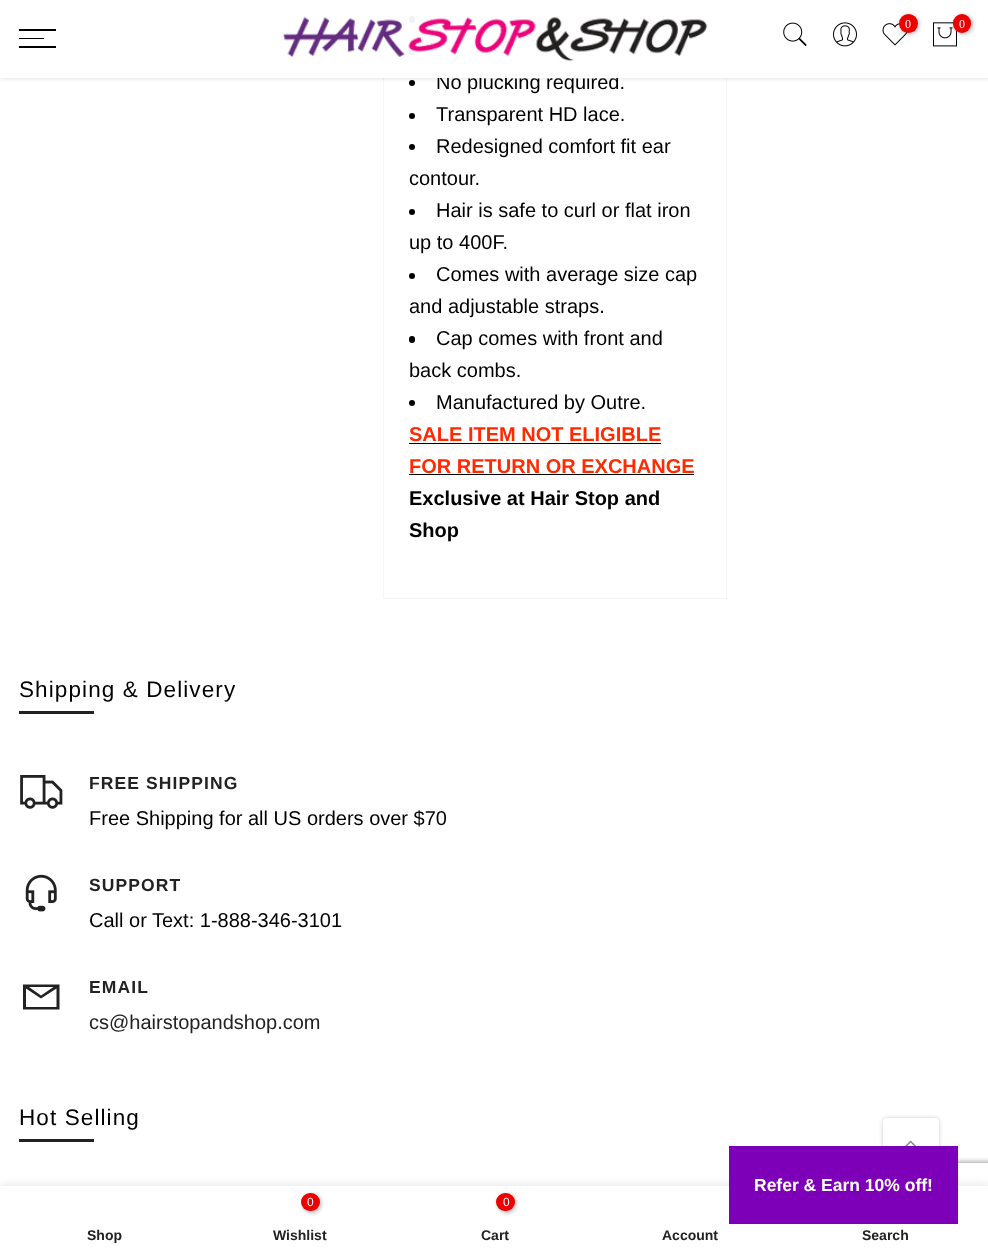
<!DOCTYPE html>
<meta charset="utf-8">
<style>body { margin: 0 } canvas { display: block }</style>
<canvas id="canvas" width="988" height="1255"></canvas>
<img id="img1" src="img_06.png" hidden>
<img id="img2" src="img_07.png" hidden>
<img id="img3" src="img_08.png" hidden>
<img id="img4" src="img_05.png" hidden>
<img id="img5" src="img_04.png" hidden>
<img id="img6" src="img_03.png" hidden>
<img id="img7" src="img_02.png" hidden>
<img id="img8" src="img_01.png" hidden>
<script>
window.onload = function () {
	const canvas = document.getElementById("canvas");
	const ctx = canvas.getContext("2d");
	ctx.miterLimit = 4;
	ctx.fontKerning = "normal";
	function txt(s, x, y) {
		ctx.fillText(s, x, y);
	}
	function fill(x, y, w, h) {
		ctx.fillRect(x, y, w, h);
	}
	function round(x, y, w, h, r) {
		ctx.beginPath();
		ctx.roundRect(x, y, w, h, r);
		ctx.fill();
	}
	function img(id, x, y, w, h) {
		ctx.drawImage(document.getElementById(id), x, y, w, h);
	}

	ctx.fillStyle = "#FFFFFF";
	fill(0, 0, 988, 1255);
	ctx.fillStyle = "#F5F5F5";
	fill(726, 0, 1, 599);
	fill(383, 598, 345, 1);
	fill(383, 0, 1, 599);
	ctx.fillStyle = "#000000";
	round(409, 16, 6, 7, 3);
	ctx.beginPath();
	ctx.arc(412, 52, 3, 0, Math.PI * 2);
	ctx.fill();
	ctx.beginPath();
	ctx.arc(412, 83, 3, 0, Math.PI * 2);
	ctx.fill();
	ctx.save();
	ctx.beginPath();
	ctx.moveTo(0, 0);
	ctx.lineTo(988, 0);
	ctx.lineTo(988, 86);
	ctx.lineTo(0, 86);
	ctx.closePath();
	ctx.moveTo(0, 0);
	ctx.lineTo(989, 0);
	ctx.lineTo(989, 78);
	ctx.lineTo(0, 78);
	ctx.closePath();
	ctx.clip("evenodd");
	ctx.fillStyle = "rgba(0, 0, 0, 0.1)";
	ctx.filter = "blur(2px)";
	ctx.beginPath();
	ctx.rect(0, 1, 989, 78);
	ctx.fill();
	ctx.filter = "none";
	ctx.restore();
	ctx.beginPath();
	ctx.arc(412, 116, 3, 0, Math.PI * 2);
	ctx.fill();
	ctx.beginPath();
	ctx.arc(412, 147, 3, 0, Math.PI * 2);
	ctx.fill();
	ctx.beginPath();
	ctx.arc(412, 212, 3, 0, Math.PI * 2);
	ctx.fill();
	ctx.beginPath();
	ctx.arc(412, 276, 3, 0, Math.PI * 2);
	ctx.fill();
	round(409, 336, 6, 7, 3);
	ctx.beginPath();
	ctx.arc(412, 403, 3, 0, Math.PI * 2);
	ctx.fill();
	fill(409, 443, 252, 1);
	fill(409, 474, 285, 1);
	ctx.fillStyle = "#222222";
	fill(19, 711, 75, 3);
	img("img1", 20, 775, 43, 34);
	img("img2", 25, 874, 32, 38);
	ctx.beginPath();
	ctx.moveTo(23, 984.5);
	ctx.lineTo(23, 1009.5);
	ctx.lineTo(59.5, 1009.5);
	ctx.lineTo(59.5, 984.5);
	ctx.closePath();
	ctx.moveTo(29, 987);
	ctx.lineTo(53.5, 987);
	ctx.lineTo(41, 995.5);
	ctx.closePath();
	ctx.moveTo(26, 988.5);
	ctx.lineTo(41, 998.5);
	ctx.lineTo(56.5, 988.5);
	ctx.lineTo(56.5, 1007);
	ctx.lineTo(26, 1007);
	ctx.closePath();
	ctx.fill();
	fill(19, 1139, 75, 3);
	ctx.fillStyle = "rgba(0, 0, 0, 0.2)";
	ctx.filter = "blur(2px)";
	ctx.beginPath();
	ctx.roundRect(883, 1118, 56, 56, 4);
	ctx.fill();
	ctx.filter = "none";
	ctx.save();
	ctx.beginPath();
	ctx.rect(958, 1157, 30, 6);
	ctx.clip();
	ctx.fillStyle = "#808080";
	ctx.filter = "blur(3px)";
	ctx.beginPath();
	ctx.roundRect(901, 1163, 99, 75, 2.5);
	ctx.fill();
	ctx.filter = "none";
	ctx.restore();
	ctx.fillStyle = "#FFFFFF";
	round(883, 1118, 56, 56, 4);
	img("img3", 905, 1140, 11, 6);
	ctx.fillStyle = "rgba(0, 0, 0, 0.12)";
	ctx.filter = "blur(5.5px)";
	ctx.beginPath();
	ctx.rect(0, 1186, 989, 69);
	ctx.fill();
	ctx.filter = "none";
	ctx.fillStyle = "#FFFFFF";
	fill(0, 1186, 988, 69);
	ctx.fillStyle = "#7D00B8";
	fill(729, 1146, 229, 78);
	ctx.fillStyle = "rgba(0, 0, 0, 0.3)";
	ctx.filter = "blur(2px)";
	ctx.beginPath();
	ctx.roundRect(303, 1194, 18, 19, 9);
	ctx.fill();
	ctx.filter = "none";
	ctx.fillStyle = "#EC0101";
	round(301, 1193, 19, 18, 9);
	ctx.fillStyle = "rgba(0, 0, 0, 0.3)";
	ctx.filter = "blur(2px)";
	ctx.beginPath();
	ctx.roundRect(498, 1194, 18, 19, 9);
	ctx.fill();
	ctx.filter = "none";
	ctx.fillStyle = "#EC0101";
	round(496, 1193, 19, 18, 9);
	ctx.font = "20px Liberation Sans";
	ctx.fillStyle = "#000000";
	txt("No plucking required.", 436, 89);
	ctx.fillStyle = "rgba(255, 255, 255, 0.95)";
	fill(0, 0, 988, 78);
	img("img4", 933, 22, 24, 25);
	ctx.fillStyle = "rgba(0, 0, 0, 0.3)";
	ctx.filter = "blur(2px)";
	ctx.beginPath();
	ctx.roundRect(954, 15, 19, 19, 9.5);
	ctx.fill();
	ctx.filter = "none";
	ctx.fillStyle = "#EC0101";
	round(953, 14, 18, 19, 9);
	ctx.font = "12px Liberation Serif";
	ctx.fillStyle = "#FFFFFF";
	txt("0", 959, 28);
	img("img5", 882, 23, 26, 23);
	ctx.fillStyle = "rgba(0, 0, 0, 0.3)";
	ctx.filter = "blur(2px)";
	ctx.beginPath();
	ctx.roundRect(900, 15, 19, 19, 9.5);
	ctx.fill();
	ctx.filter = "none";
	ctx.fillStyle = "#EC0101";
	ctx.beginPath();
	ctx.arc(908.5, 23.5, 9.5, 0, Math.PI * 2);
	ctx.fill();
	ctx.fillStyle = "#FFFFFF";
	txt("0", 905, 28);
	img("img6", 833, 22, 24, 25);
	img("img7", 783, 22, 24, 25);
	img("img8", 282, 16, 426, 46);
	ctx.fillStyle = "#000000";
	fill(19, 46, 37, 2);
	fill(19, 38, 25, 1);
	fill(19, 29, 37, 2);
	ctx.font = "20px Liberation Sans";
	txt("Transparent HD lace.", 436, 121);
	txt("Redesigned comfort fit ear", 436, 153);
	txt("contour.", 409, 185);
	txt("Hair is safe to curl or flat iron", 436, 217);
	txt("up to 400F.", 409, 249);
	txt("Comes with average size cap", 436, 281);
	txt("and adjustable straps.", 409, 313);
	txt("Cap comes with front and", 436, 345);
	txt("back combs.", 409, 377);
	txt("Manufactured by Outre.", 436, 409);
	ctx.font = "bold 20px Liberation Sans";
	ctx.fillStyle = "#FF2A00";
	txt("SALE ITEM NOT ELIGIBLE", 409, 441);
	txt("FOR RETURN OR EXCHANGE", 409, 473);
	ctx.fillStyle = "#000000";
	txt("Exclusive at Hair Stop and", 409, 505);
	txt("Shop", 409, 537);
	ctx.letterSpacing = "1.1px";
	ctx.font = "22.5px Liberation Sans";
	txt("Shipping & Delivery", 19, 697);
	ctx.font = "bold 17.5px Liberation Sans";
	ctx.fillStyle = "#222222";
	txt("FREE SHIPPING", 89, 789);
	ctx.letterSpacing = "0px";
	ctx.font = "20px Liberation Sans";
	ctx.fillStyle = "#000000";
	txt("Free Shipping for all US orders over $70", 89, 825);
	ctx.letterSpacing = "1.1px";
	ctx.font = "bold 17.5px Liberation Sans";
	ctx.fillStyle = "#222222";
	txt("SUPPORT", 89, 891);
	ctx.letterSpacing = "0px";
	ctx.font = "20px Liberation Sans";
	ctx.fillStyle = "#000000";
	txt("Call or Text: 1-888-346-3101", 89, 927);
	ctx.letterSpacing = "1.1px";
	ctx.font = "bold 17.5px Liberation Sans";
	ctx.fillStyle = "#222222";
	txt("EMAIL", 89, 993);
	ctx.letterSpacing = "0px";
	ctx.font = "20px Liberation Sans";
	txt("cs@hairstopandshop.com", 89, 1029);
	ctx.letterSpacing = "1.1px";
	ctx.font = "22.5px Liberation Sans";
	ctx.fillStyle = "#000000";
	txt("Hot Selling", 19, 1125);
	ctx.letterSpacing = "0px";
	ctx.font = "bold 17.5px Liberation Sans";
	ctx.fillStyle = "#FFFFFF";
	txt("Refer & Earn 10% off!", 754, 1191);
	ctx.font = "bold 14px Liberation Sans";
	ctx.fillStyle = "#222222";
	txt("Shop", 87, 1240);
	ctx.font = "12px Liberation Sans";
	ctx.fillStyle = "#FFFFFF";
	txt("0", 307, 1206);
	ctx.font = "bold 14px Liberation Sans";
	ctx.fillStyle = "#222222";
	txt("Wishlist", 273, 1240);
	ctx.font = "12px Liberation Sans";
	ctx.fillStyle = "#FFFFFF";
	txt("0", 503, 1206);
	ctx.font = "bold 14px Liberation Sans";
	ctx.fillStyle = "#222222";
	txt("Cart", 481, 1240);
	txt("Account", 662, 1240);
	txt("Search", 862, 1240);
};
</script>
